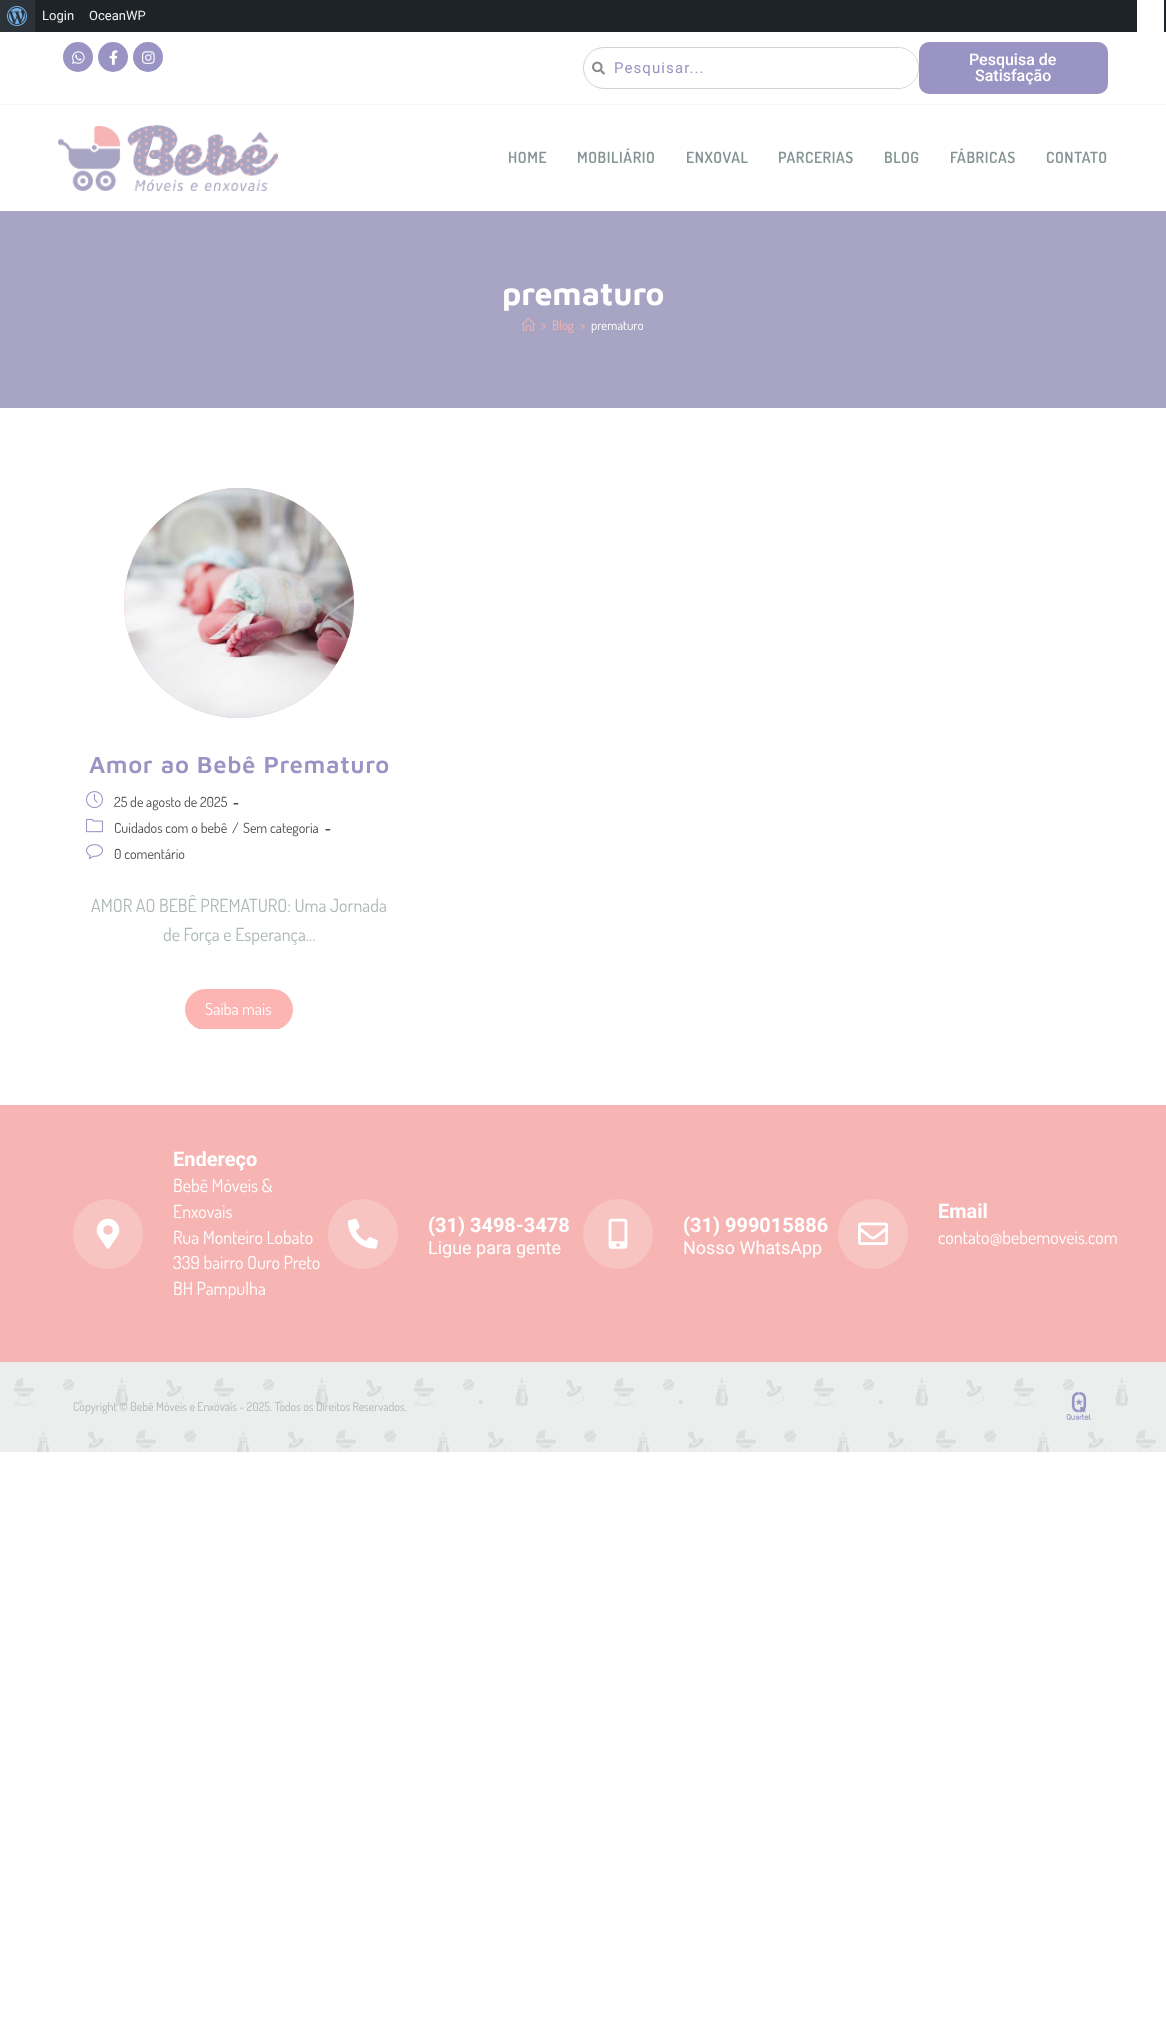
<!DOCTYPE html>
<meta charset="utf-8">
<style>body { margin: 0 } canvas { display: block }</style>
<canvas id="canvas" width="1166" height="2036"></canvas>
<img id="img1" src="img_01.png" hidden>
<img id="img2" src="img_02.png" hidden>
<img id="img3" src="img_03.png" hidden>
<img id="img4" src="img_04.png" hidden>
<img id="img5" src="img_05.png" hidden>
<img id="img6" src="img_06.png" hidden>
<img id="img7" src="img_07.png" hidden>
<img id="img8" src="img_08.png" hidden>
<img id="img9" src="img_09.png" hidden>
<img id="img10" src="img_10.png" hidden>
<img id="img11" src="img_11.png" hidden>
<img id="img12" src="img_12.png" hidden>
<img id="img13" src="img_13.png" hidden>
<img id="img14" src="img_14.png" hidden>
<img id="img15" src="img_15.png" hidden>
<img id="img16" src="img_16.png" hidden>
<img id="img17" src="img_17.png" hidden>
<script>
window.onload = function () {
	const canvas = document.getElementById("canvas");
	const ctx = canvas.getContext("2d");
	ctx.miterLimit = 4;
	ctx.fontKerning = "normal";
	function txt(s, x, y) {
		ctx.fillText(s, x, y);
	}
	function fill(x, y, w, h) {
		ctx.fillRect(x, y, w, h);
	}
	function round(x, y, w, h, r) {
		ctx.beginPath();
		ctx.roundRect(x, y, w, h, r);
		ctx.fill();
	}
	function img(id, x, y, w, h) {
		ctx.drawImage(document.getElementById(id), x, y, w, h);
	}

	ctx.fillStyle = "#FFFFFF";
	fill(0, 0, 1166, 2036);
	ctx.fillStyle = "#1D2327";
	fill(35, 0, 1131, 32);
	ctx.fillStyle = "#2C3338";
	fill(0, 0, 35, 32);
	img("img1", 7, 6, 20, 20);
	ctx.fillStyle = "#FFFFFF";
	fill(1137, 0, 27, 32);
	ctx.fillStyle = "#F7F8F8";
	fill(0, 104, 1166, 1);
	ctx.fillStyle = "#9994C3";
	ctx.beginPath();
	ctx.arc(78, 57, 15, 0, Math.PI * 2);
	ctx.fill();
	img("img2", 72, 51, 13, 13);
	ctx.beginPath();
	ctx.arc(113, 57, 15, 0, Math.PI * 2);
	ctx.fill();
	img("img3", 109, 50, 9, 15);
	ctx.beginPath();
	ctx.arc(148, 57, 15, 0, Math.PI * 2);
	ctx.fill();
	img("img4", 142, 51, 13, 13);
	ctx.beginPath();
	ctx.roundRect(583.5, 47.5, 335, 41, 20.5);
	ctx.strokeStyle = "#D2D2D2";
	ctx.stroke();
	img("img5", 592, 61, 13, 14);
	ctx.fillStyle = "#FFFFFF";
	ctx.beginPath();
	ctx.roundRect(605, 48, 313, 40, [3, 20, 20, 3]);
	ctx.fill();
	ctx.fillStyle = "#9994C3";
	round(919, 42, 189, 52, 10);
	img("img6", 58, 125, 220, 66);
	ctx.fillStyle = "#A8A5C4";
	fill(0, 211, 1166, 197);
	img("img7", 522, 317, 13, 14);
	ctx.fillStyle = "#F6B5B3";
	ctx.beginPath();
	ctx.arc(239, 603, 115, 0, Math.PI * 2);
	ctx.fill();
	img("img8", 124, 488, 230, 230);
	img("img9", 86, 791, 17, 17);
	img("img10", 86, 818, 17, 15);
	img("img11", 86, 844, 17, 15);
	ctx.fillStyle = "#FDB5B3";
	round(185, 989, 108, 41, 20.5);
	ctx.fillStyle = "#FFFFFF";
	fill(195, 1029, 88, 1);
	ctx.fillStyle = "#F6B5B3";
	fill(0, 1105, 1166, 257);
	ctx.fillStyle = "#F8C4C2";
	ctx.beginPath();
	ctx.arc(108, 1234, 35, 0, Math.PI * 2);
	ctx.fill();
	img("img12", 96, 1218, 24, 31);
	ctx.beginPath();
	ctx.arc(363, 1234, 35, 0, Math.PI * 2);
	ctx.fill();
	img("img13", 348, 1218, 30, 31);
	ctx.beginPath();
	ctx.arc(618, 1234, 35, 0, Math.PI * 2);
	ctx.fill();
	img("img14", 608, 1218, 20, 31);
	ctx.beginPath();
	ctx.arc(873, 1234, 35, 0, Math.PI * 2);
	ctx.fill();
	img("img15", 858, 1222, 30, 23);
	img("img16", 0, 1362, 1166, 90);
	img("img17", 1066, 1392, 26, 28);
	ctx.font = "13px Roboto";
	ctx.fillStyle = "#F0F0F1";
	txt("Login", 42, 20);
	txt("OceanWP", 89, 20);
	ctx.letterSpacing = "1.1px";
	ctx.font = "15px Roboto";
	ctx.fillStyle = "#9994C3";
	txt("Pesquisar...", 614, 73);
	ctx.letterSpacing = "0px";
	ctx.font = "500 16px Roboto";
	ctx.fillStyle = "#FFFFFF";
	txt("Pesquisa de", 969, 65);
	txt("Satisfação", 975, 81);
	ctx.letterSpacing = "0.6px";
	ctx.font = "600 15.5px Dosis";
	ctx.fillStyle = "#859493";
	txt("HOME", 508, 163);
	txt("MOBILIÁRIO", 577, 163);
	txt("ENXOVAL", 686, 163);
	txt("PARCERIAS", 778, 163);
	txt("BLOG", 884, 163);
	txt("FÁBRICAS", 950, 163);
	txt("CONTATO", 1046, 163);
	ctx.letterSpacing = "0px";
	ctx.font = "bold 32px Maven Pro";
	ctx.fillStyle = "#FFFFFF";
	txt("prematuro", 502, 305);
	ctx.font = "13px Dosis";
	ctx.fillStyle = "#F6B5B2";
	txt(">", 541, 330);
	txt("Blog", 552, 330);
	txt(">", 580, 330);
	ctx.fillStyle = "#FFFFFF";
	txt("prematuro", 591, 330);
	ctx.letterSpacing = "0.6px";
	ctx.font = "600 24px Maven Pro";
	ctx.fillStyle = "#9994C3";
	txt("Amor ao Bebê Prematuro", 89, 773);
	ctx.letterSpacing = "0px";
	ctx.font = "14px Dosis";
	ctx.fillStyle = "#4A4A4A";
	txt("25 de agosto de 2025", 114, 807);
	ctx.font = "bold 14px Dosis";
	txt("-", 233, 807);
	ctx.font = "14px Dosis";
	txt("Cuidados com o bebê", 114, 833);
	txt("/", 232, 833);
	txt("Sem categoria", 243, 833);
	ctx.font = "bold 14px Dosis";
	txt("-", 325, 833);
	ctx.font = "14px Dosis";
	txt("0 comentário", 114, 859);
	ctx.font = "18px Dosis";
	ctx.fillStyle = "#AEB8B7";
	txt("AMOR AO BEBÊ PREMATURO: Uma Jornada", 91, 912);
	txt("de Força e Esperança…", 163, 941);
	ctx.font = "16.5px Dosis";
	ctx.fillStyle = "#FFFFFF";
	txt("Saiba mais", 205, 1015);
	ctx.font = "bold 20px Roboto";
	txt("Endereço", 173, 1166);
	ctx.font = "18px Dosis";
	txt("Bebê Móveis &", 173, 1192);
	txt("Enxovais", 173, 1218);
	txt("Rua Monteiro Lobato", 173, 1244);
	txt("339 bairro Ouro Preto", 173, 1269);
	txt("BH Pampulha", 173, 1295);
	ctx.font = "bold 20px Roboto";
	txt("(31) 3498-3478", 428, 1232);
	ctx.font = "18px Roboto";
	txt("Ligue para gente", 428, 1254);
	ctx.font = "bold 20px Roboto";
	txt("(31) 999015886", 683, 1232);
	ctx.font = "18px Roboto";
	txt("Nosso WhatsApp", 683, 1254);
	ctx.font = "bold 20px Roboto";
	txt("Email", 938, 1218);
	ctx.font = "18px Dosis";
	txt("contato@bebemoveis.com", 938, 1244);
	ctx.font = "12px Dosis";
	ctx.fillStyle = "#AEB8B7";
	txt("Copyright © Bebê Móveis e Enxovais - 2025. Todos os Direitos Reservados.", 73, 1411);
};
</script>
